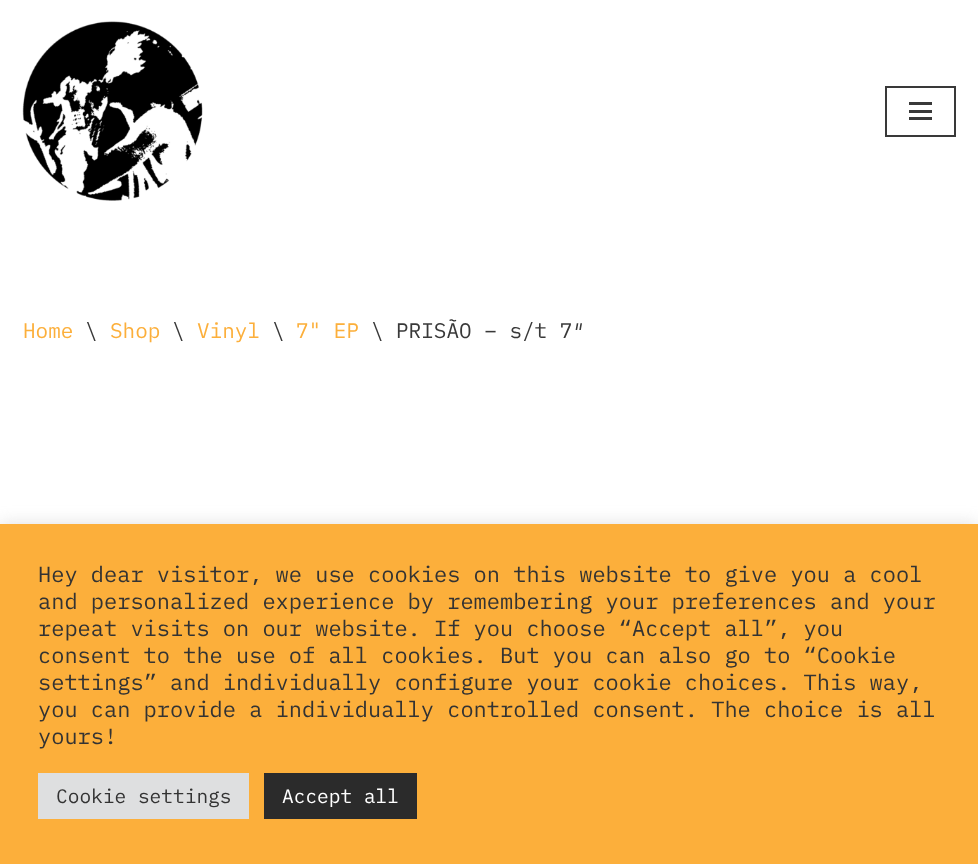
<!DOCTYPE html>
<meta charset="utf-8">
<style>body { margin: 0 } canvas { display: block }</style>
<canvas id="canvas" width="978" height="864"></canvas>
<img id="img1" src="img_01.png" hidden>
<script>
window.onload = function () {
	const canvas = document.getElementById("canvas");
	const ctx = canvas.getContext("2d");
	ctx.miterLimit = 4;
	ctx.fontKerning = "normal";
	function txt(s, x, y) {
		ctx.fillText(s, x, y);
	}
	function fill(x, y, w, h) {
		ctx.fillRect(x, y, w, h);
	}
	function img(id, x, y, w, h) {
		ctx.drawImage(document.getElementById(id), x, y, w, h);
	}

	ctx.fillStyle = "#FFFFFF";
	fill(0, 0, 978, 864);
	img("img1", 22, 21, 181, 180);
	ctx.strokeStyle = "#393939";
	ctx.lineWidth = 2;
	ctx.strokeRect(886, 87, 69, 49);
	ctx.fillStyle = "#393939";
	fill(909, 102, 23, 3);
	fill(909, 110, 23, 3);
	fill(909, 117, 23, 3);
	ctx.fillStyle = "rgba(172, 171, 171, 0.3)";
	ctx.filter = "blur(7.5px)";
	ctx.beginPath();
	ctx.rect(0, 522, 978, 341);
	ctx.fill();
	ctx.filter = "none";
	ctx.fillStyle = "#FCAF3B";
	fill(0, 524, 978, 340);
	ctx.fillStyle = "#DEDFE0";
	fill(38, 773, 211, 46);
	ctx.fillStyle = "#2B2B2B";
	fill(264, 773, 153, 46);
	ctx.font = "21px IBM Plex Mono";
	ctx.fillStyle = "#FCAF3B";
	txt("Home", 23, 338);
	ctx.fillStyle = "#393939";
	txt("\\", 85, 338);
	ctx.fillStyle = "#FCAF3B";
	txt("Shop", 110, 338);
	ctx.fillStyle = "#393939";
	txt("\\", 172, 338);
	ctx.fillStyle = "#FCAF3B";
	txt("Vinyl", 197, 338);
	ctx.fillStyle = "#393939";
	txt("\\", 272, 338);
	ctx.fillStyle = "#FCAF3B";
	txt("7\" EP", 296, 338);
	ctx.fillStyle = "#393939";
	txt("\\", 371, 338);
	txt("PRISÃO – s/t 7″", 396, 338);
	ctx.font = "22px IBM Plex Mono";
	ctx.fillStyle = "#333333";
	txt("Hey dear visitor, we use cookies on this website to give you a cool", 38, 582);
	txt("and personalized experience by remembering your preferences and your", 38, 609);
	txt("repeat visits on our website. If you choose “Accept all”, you", 38, 636);
	txt("consent to the use of all cookies. But you can also go to “Cookie", 38, 663);
	txt("settings” and individually configure your cookie choices. This way,", 38, 690);
	txt("you can provide a individually controlled consent. The choice is all", 38, 717);
	txt("yours!", 38, 744);
	ctx.font = "19.5px IBM Plex Mono";
	txt("Cookie settings", 56, 803);
	ctx.fillStyle = "#FFFFFF";
	txt("Accept all", 282, 803);
};
</script>
